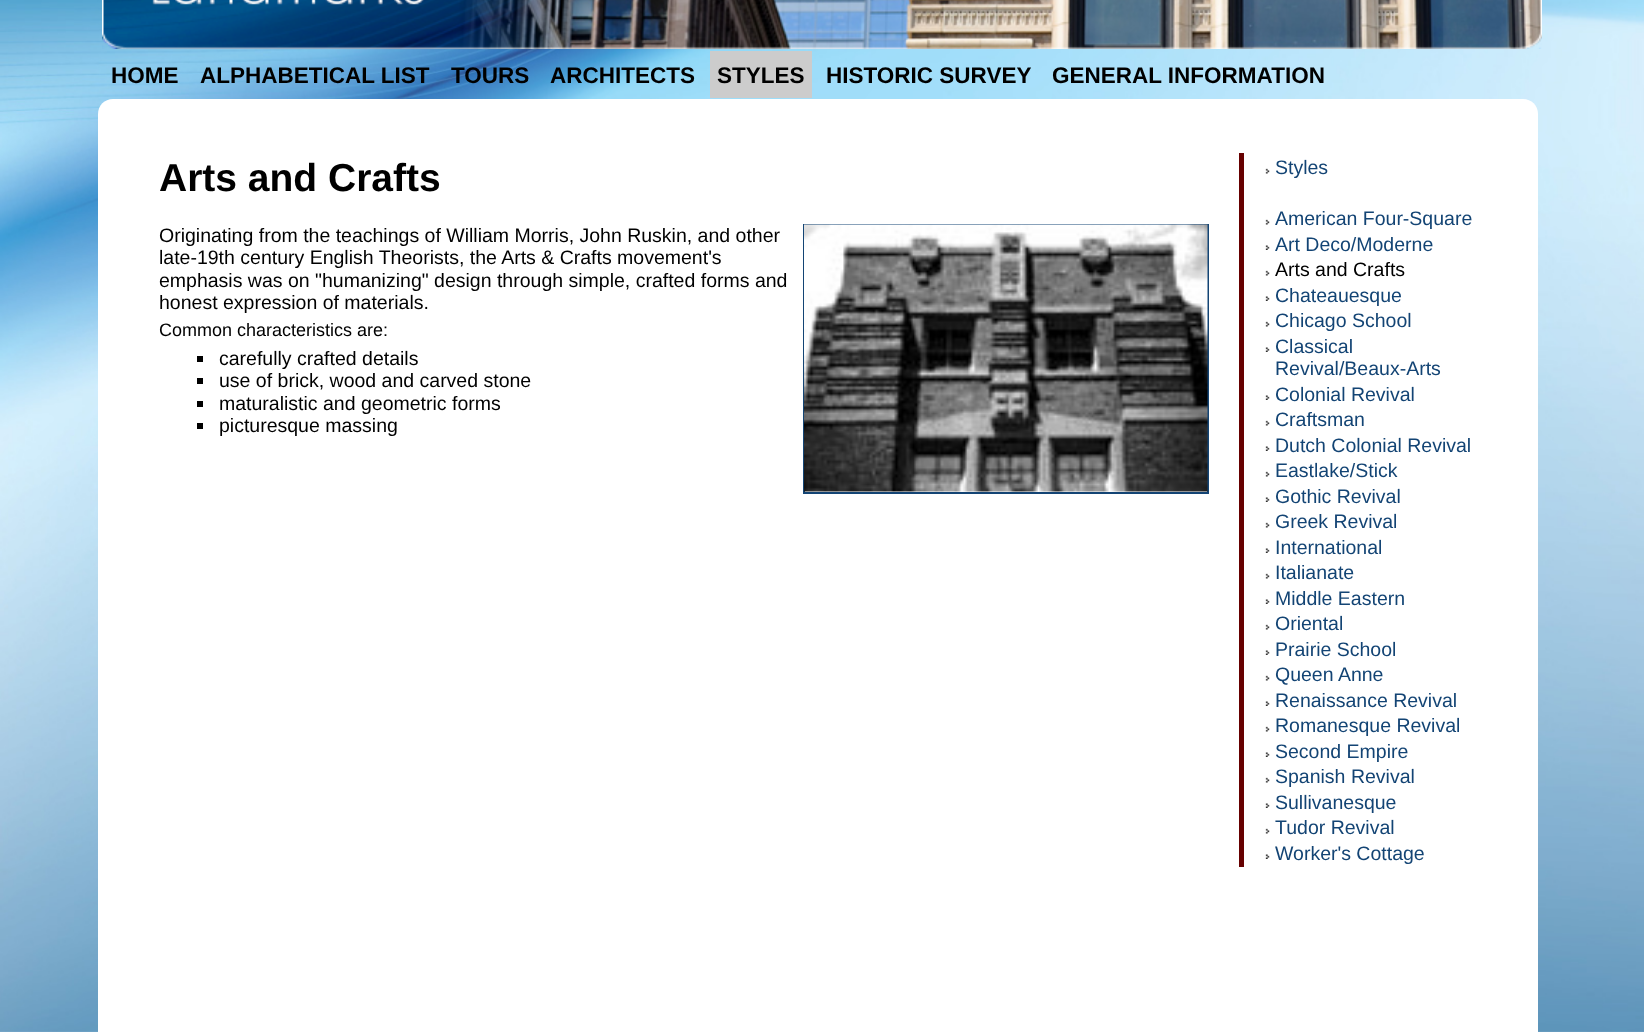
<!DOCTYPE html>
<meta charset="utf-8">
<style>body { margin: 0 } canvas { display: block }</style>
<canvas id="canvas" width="1644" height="1032"></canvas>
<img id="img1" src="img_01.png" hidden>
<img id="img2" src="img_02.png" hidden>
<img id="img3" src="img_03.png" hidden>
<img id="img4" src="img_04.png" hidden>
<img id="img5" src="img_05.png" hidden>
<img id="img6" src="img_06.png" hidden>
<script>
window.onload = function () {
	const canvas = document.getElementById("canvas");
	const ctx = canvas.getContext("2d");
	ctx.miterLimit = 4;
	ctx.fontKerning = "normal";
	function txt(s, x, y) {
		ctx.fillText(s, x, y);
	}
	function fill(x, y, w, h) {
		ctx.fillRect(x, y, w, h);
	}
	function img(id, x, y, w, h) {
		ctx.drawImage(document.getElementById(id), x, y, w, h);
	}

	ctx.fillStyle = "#FFFFFF";
	fill(0, 0, 1644, 1032);
	img("img1", 0, 1031, 1644, 1);
	img("img2", 0, 0, 1644, 1032);
	img("img3", 102, 0, 1440, 49);
	ctx.fillStyle = "#CCCCCC";
	fill(710, 51, 102, 47);
	ctx.fillStyle = "#FFFFFF";
	ctx.beginPath();
	ctx.moveTo(113, 99);
	ctx.lineTo(1523, 99);
	ctx.bezierCurveTo(1531.5, 99, 1538, 105.5, 1538, 114);
	ctx.lineTo(1538, 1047);
	ctx.lineTo(98, 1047);
	ctx.lineTo(98, 114);
	ctx.bezierCurveTo(98, 105.5, 104.5, 99, 113, 99);
	ctx.closePath();
	ctx.fill();
	ctx.strokeStyle = "#134474";
	ctx.lineWidth = 2;
	ctx.strokeRect(804, 225, 404, 268);
	img("img4", 804, 224, 404, 268);
	ctx.fillStyle = "#000000";
	fill(197, 356, 6, 6);
	fill(197, 378, 6, 6);
	fill(197, 401, 6, 6);
	fill(197, 423, 6, 6);
	ctx.fillStyle = "#660000";
	fill(1239, 153, 5, 714);
	img("img5", 1265, 168, 5, 6);
	img("img5", 1265, 219, 5, 6);
	img("img6", 1265, 245, 5, 5);
	img("img5", 1265, 270, 5, 6);
	img("img6", 1265, 296, 5, 5);
	img("img5", 1265, 321, 5, 6);
	img("img6", 1265, 347, 5, 5);
	img("img6", 1265, 395, 5, 5);
	img("img5", 1265, 420, 5, 6);
	img("img6", 1265, 446, 5, 5);
	img("img5", 1265, 471, 5, 6);
	img("img6", 1265, 497, 5, 5);
	img("img5", 1265, 522, 5, 6);
	img("img6", 1265, 548, 5, 5);
	img("img5", 1265, 573, 5, 6);
	img("img6", 1265, 599, 5, 5);
	img("img5", 1265, 624, 5, 6);
	img("img6", 1265, 650, 5, 5);
	img("img5", 1265, 675, 5, 6);
	img("img6", 1265, 701, 5, 5);
	img("img5", 1265, 726, 5, 6);
	img("img6", 1265, 752, 5, 5);
	img("img5", 1265, 777, 5, 6);
	img("img6", 1265, 803, 5, 5);
	img("img5", 1265, 828, 5, 6);
	img("img6", 1265, 854, 5, 5);
	ctx.font = "bold 22.5px Liberation Sans";
	ctx.fillStyle = "#000000";
	txt("HOME", 111, 83);
	txt("ALPHABETICAL LIST", 200, 83);
	txt("TOURS", 451, 83);
	txt("ARCHITECTS", 550, 83);
	txt("STYLES", 717, 83);
	txt("HISTORIC SURVEY", 826, 83);
	txt("GENERAL INFORMATION", 1052, 83);
	ctx.font = "bold 39px Liberation Sans";
	txt("Arts and Crafts", 159, 191);
	ctx.font = "19.5px Liberation Sans";
	txt("Originating from the teachings of William Morris, John Ruskin, and other", 159, 242);
	txt("late-19th century English Theorists, the Arts & Crafts movement's", 159, 264);
	txt("emphasis was on \"humanizing\" design through simple, crafted forms and", 159, 287);
	txt("honest expression of materials.", 159, 309);
	ctx.font = "18px Liberation Sans";
	txt("Common characteristics are:", 159, 336);
	ctx.font = "19.5px Liberation Sans";
	txt("carefully crafted details", 219, 365);
	txt("use of brick, wood and carved stone", 219, 387);
	txt("maturalistic and geometric forms", 219, 410);
	txt("picturesque massing", 219, 432);
	ctx.fillStyle = "#134474";
	txt("Styles", 1275, 174);
	txt("American Four-Square", 1275, 225);
	txt("Art Deco/Moderne", 1275, 251);
	ctx.fillStyle = "#000000";
	txt("Arts and Crafts", 1275, 276);
	ctx.fillStyle = "#134474";
	txt("Chateauesque", 1275, 302);
	txt("Chicago School", 1275, 327);
	txt("Classical", 1275, 353);
	txt("Revival/Beaux-Arts", 1275, 375);
	txt("Colonial Revival", 1275, 401);
	txt("Craftsman", 1275, 426);
	txt("Dutch Colonial Revival", 1275, 452);
	txt("Eastlake/Stick", 1275, 477);
	txt("Gothic Revival", 1275, 503);
	txt("Greek Revival", 1275, 528);
	txt("International", 1275, 554);
	txt("Italianate", 1275, 579);
	txt("Middle Eastern", 1275, 605);
	txt("Oriental", 1275, 630);
	txt("Prairie School", 1275, 656);
	txt("Queen Anne", 1275, 681);
	txt("Renaissance Revival", 1275, 707);
	txt("Romanesque Revival", 1275, 732);
	txt("Second Empire", 1275, 758);
	txt("Spanish Revival", 1275, 783);
	txt("Sullivanesque", 1275, 809);
	txt("Tudor Revival", 1275, 834);
	txt("Worker's Cottage", 1275, 860);
};
</script>
